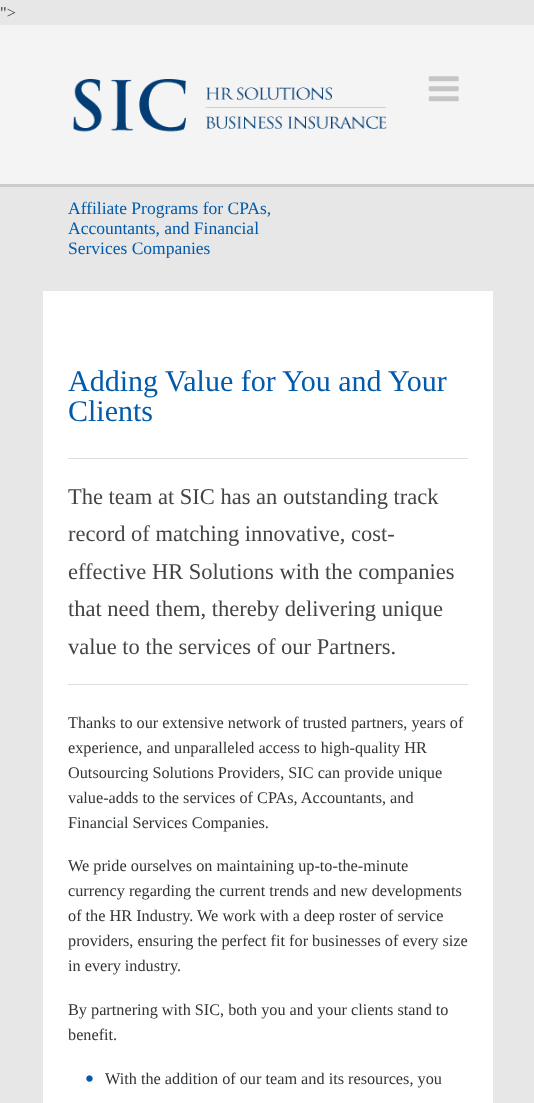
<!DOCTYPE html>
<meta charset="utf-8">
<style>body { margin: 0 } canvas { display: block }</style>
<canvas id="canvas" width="534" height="1103"></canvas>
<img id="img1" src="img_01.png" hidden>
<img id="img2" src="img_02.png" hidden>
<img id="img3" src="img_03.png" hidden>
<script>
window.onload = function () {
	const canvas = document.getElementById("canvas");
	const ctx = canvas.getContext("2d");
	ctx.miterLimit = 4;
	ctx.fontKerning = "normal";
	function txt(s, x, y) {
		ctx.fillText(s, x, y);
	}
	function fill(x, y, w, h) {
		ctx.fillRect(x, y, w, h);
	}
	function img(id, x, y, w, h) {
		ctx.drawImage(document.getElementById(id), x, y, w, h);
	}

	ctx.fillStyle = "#E7E7E7";
	fill(0, 0, 534, 1103);
	ctx.fillStyle = "#F4F4F4";
	fill(0, 25, 534, 159);
	img("img1", 73, 79, 314, 53);
	img("img2", 428, 76, 31, 26);
	ctx.fillStyle = "#CCCCCC";
	fill(0, 184, 534, 3);
	ctx.fillStyle = "#FFFFFF";
	fill(43, 291, 450, 812);
	ctx.fillStyle = "#DDDDDD";
	fill(68, 458, 400, 1);
	fill(68, 684, 400, 1);
	img("img3", 86, 1075, 7, 7);
	ctx.font = "16.25px Liberation Serif";
	ctx.fillStyle = "#313538";
	txt("\">", 0, 18);
	ctx.font = "17.5px Liberation Serif";
	ctx.fillStyle = "#015AAA";
	txt("Affiliate Programs for CPAs,", 68, 214);
	txt("Accountants, and Financial", 68, 234);
	txt("Services Companies", 68, 254);
	ctx.font = "30px Liberation Serif";
	txt("Adding Value for You and Your", 68, 391);
	txt("Clients", 68, 421);
	ctx.font = "22.5px Liberation Serif";
	ctx.fillStyle = "#444444";
	txt("The team at SIC has an outstanding track", 68, 504);
	txt("record of matching innovative, cost-", 68, 541);
	txt("effective HR Solutions with the companies", 68, 579);
	txt("that need them, thereby delivering unique", 68, 616);
	txt("value to the services of our Partners.", 68, 654);
	ctx.font = "16.25px Liberation Serif";
	ctx.fillStyle = "#313538";
	txt("Thanks to our extensive network of trusted partners, years of", 68, 728);
	txt("experience, and unparalleled access to high-quality HR", 68, 753);
	txt("Outsourcing Solutions Providers, SIC can provide unique", 68, 778);
	txt("value-adds to the services of CPAs, Accountants, and", 68, 803);
	txt("Financial Services Companies.", 68, 828);
	txt("We pride ourselves on maintaining up-to-the-minute", 68, 871);
	txt("currency regarding the current trends and new developments", 68, 896);
	txt("of the HR Industry. We work with a deep roster of service", 68, 921);
	txt("providers, ensuring the perfect fit for businesses of every size", 68, 946);
	txt("in every industry.", 68, 971);
	txt("By partnering with SIC, both you and your clients stand to", 68, 1015);
	txt("benefit.", 68, 1040);
	txt("With the addition of our team and its resources, you", 105, 1084);
};
</script>
